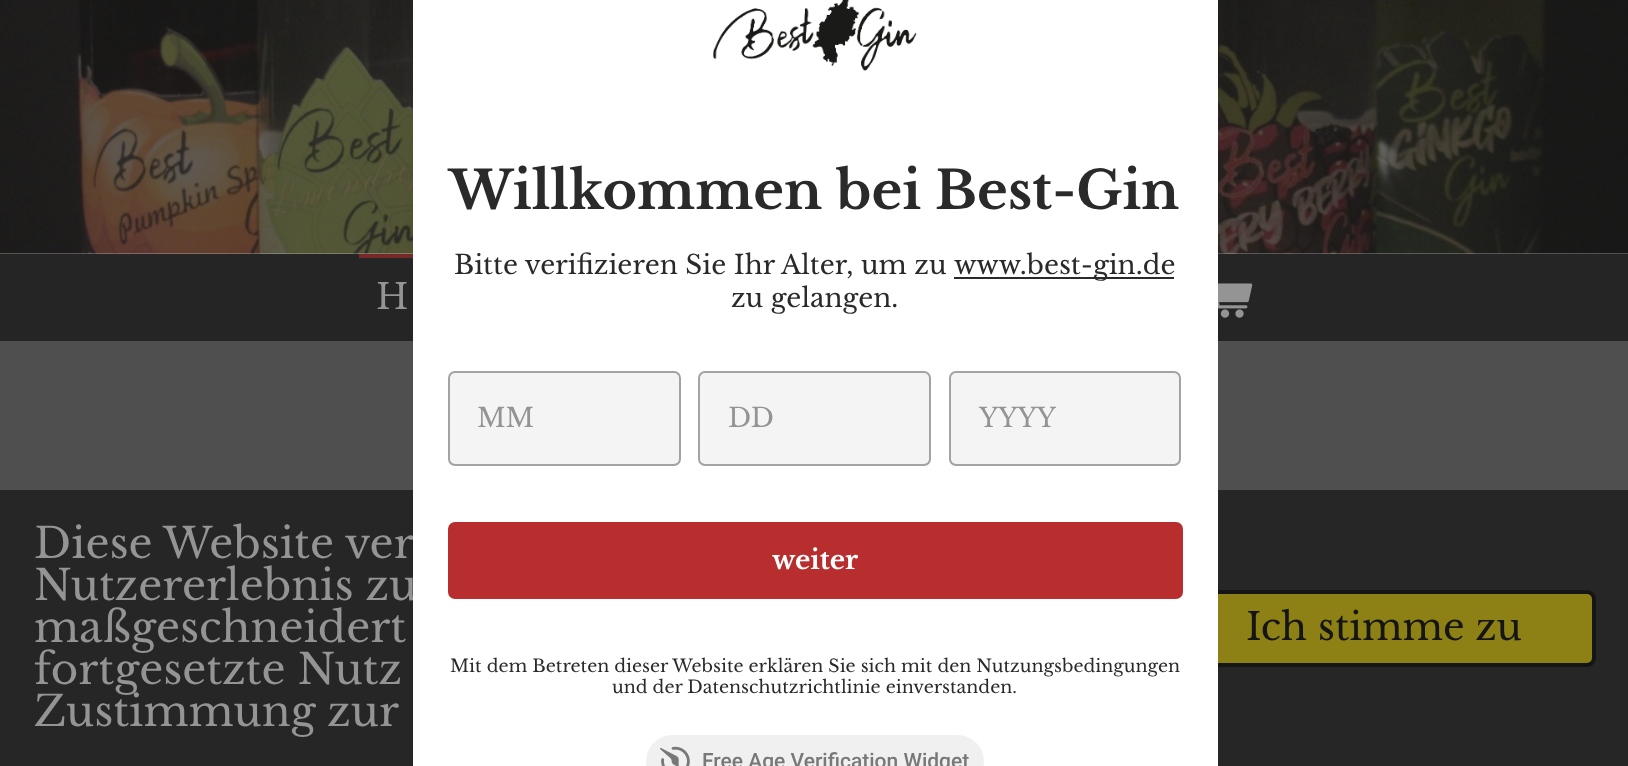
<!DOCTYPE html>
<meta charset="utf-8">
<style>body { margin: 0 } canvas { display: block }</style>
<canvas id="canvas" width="1628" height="766"></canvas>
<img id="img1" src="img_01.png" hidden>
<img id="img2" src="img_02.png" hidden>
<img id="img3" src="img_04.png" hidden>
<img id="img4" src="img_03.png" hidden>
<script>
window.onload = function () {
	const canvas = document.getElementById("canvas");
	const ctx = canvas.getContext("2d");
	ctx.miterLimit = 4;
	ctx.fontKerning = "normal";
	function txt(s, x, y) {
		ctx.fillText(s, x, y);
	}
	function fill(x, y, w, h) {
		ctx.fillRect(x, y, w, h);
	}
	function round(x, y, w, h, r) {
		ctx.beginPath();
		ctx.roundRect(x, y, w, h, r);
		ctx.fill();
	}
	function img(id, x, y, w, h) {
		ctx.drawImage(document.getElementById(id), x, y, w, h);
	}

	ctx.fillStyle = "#FFFFFF";
	fill(0, 0, 1628, 766);
	img("img1", 0, 0, 1628, 254);
	ctx.fillStyle = "#252525";
	fill(0, 254, 1628, 87);
	ctx.fillStyle = "#772828";
	fill(359, 254, 54, 4);
	img("img2", 1218, 283, 35, 35);
	ctx.fillStyle = "#4F4F4F";
	fill(0, 341, 1628, 149);
	ctx.fillStyle = "#262626";
	fill(0, 490, 1628, 276);
	ctx.fillStyle = "#8D8015";
	ctx.beginPath();
	ctx.roundRect(1175, 592, 419, 73, 7);
	ctx.fill();
	ctx.strokeStyle = "#151515";
	ctx.lineWidth = 4;
	ctx.stroke();
	ctx.font = "35px Libre Baskerville";
	ctx.fillStyle = "#949494";
	txt("H", 376, 309);
	ctx.font = "42px Libre Baskerville";
	txt("Diese Website ver", 34, 558);
	txt("Nutzererlebnis zu", 34, 600);
	ctx.fillStyle = "#FFFFFF";
	fill(413, 0, 805, 766);
	ctx.fillStyle = "#F0F0F0";
	round(646, 735, 338, 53, 26.5);
	img("img3", 660, 746, 30, 20);
	ctx.font = "500 21px Roboto";
	ctx.fillStyle = "#787878";
	txt("Free Age Verification Widget", 702, 768);
	img("img4", 713, 0, 204, 71);
	ctx.font = "17.5px Libre Baskerville";
	ctx.fillStyle = "#2A2A2A";
	txt("und der Datenschutzrichtlinie einverstanden.", 612, 693);
	txt("Mit dem Betreten dieser Website erklären Sie sich mit den Nutzungsbedingungen", 450, 672);
	ctx.fillStyle = "#B82D2D";
	round(448, 522, 735, 77, 7);
	ctx.font = "bold 26.25px Libre Baskerville";
	ctx.fillStyle = "#FFFFFF";
	txt("weiter", 772, 569);
	ctx.fillStyle = "#F4F4F4";
	round(949, 371, 232, 95, 7);
	ctx.beginPath();
	ctx.roundRect(950, 372, 230, 93, 6);
	ctx.strokeStyle = "rgba(42, 42, 42, 0.4)";
	ctx.lineWidth = 2;
	ctx.stroke();
	ctx.font = "26.25px Libre Baskerville";
	ctx.fillStyle = "#949494";
	txt("YYYY", 979, 427);
	ctx.fillStyle = "#F4F4F4";
	round(698, 371, 233, 95, 7);
	ctx.beginPath();
	ctx.roundRect(699, 372, 231, 93, 6);
	ctx.stroke();
	ctx.fillStyle = "#949494";
	txt("DD", 728, 427);
	ctx.fillStyle = "#F4F4F4";
	round(448, 371, 233, 95, 7);
	ctx.beginPath();
	ctx.roundRect(449, 372, 231, 93, 6);
	ctx.stroke();
	ctx.fillStyle = "#949494";
	txt("MM", 477, 427);
	ctx.fillStyle = "#2A2A2A";
	txt("zu gelangen.", 731, 307);
	fill(954, 277, 220, 2);
	txt("www.best-gin.de", 954, 274);
	txt("Bitte verifizieren Sie Ihr Alter, um zu", 454, 274);
	ctx.font = "bold 52.5px Libre Baskerville";
	txt("Willkommen bei Best-Gin", 449, 209);
	ctx.font = "42px Libre Baskerville";
	ctx.fillStyle = "#949494";
	txt("maßgeschneidert", 34, 642);
	txt("fortgesetzte Nutz", 34, 684);
	txt("Zustimmung zur", 34, 726);
	ctx.font = "37.75px Libre Baskerville";
	ctx.fillStyle = "#151515";
	txt("Ich stimme zu", 1246, 640);
};
</script>
